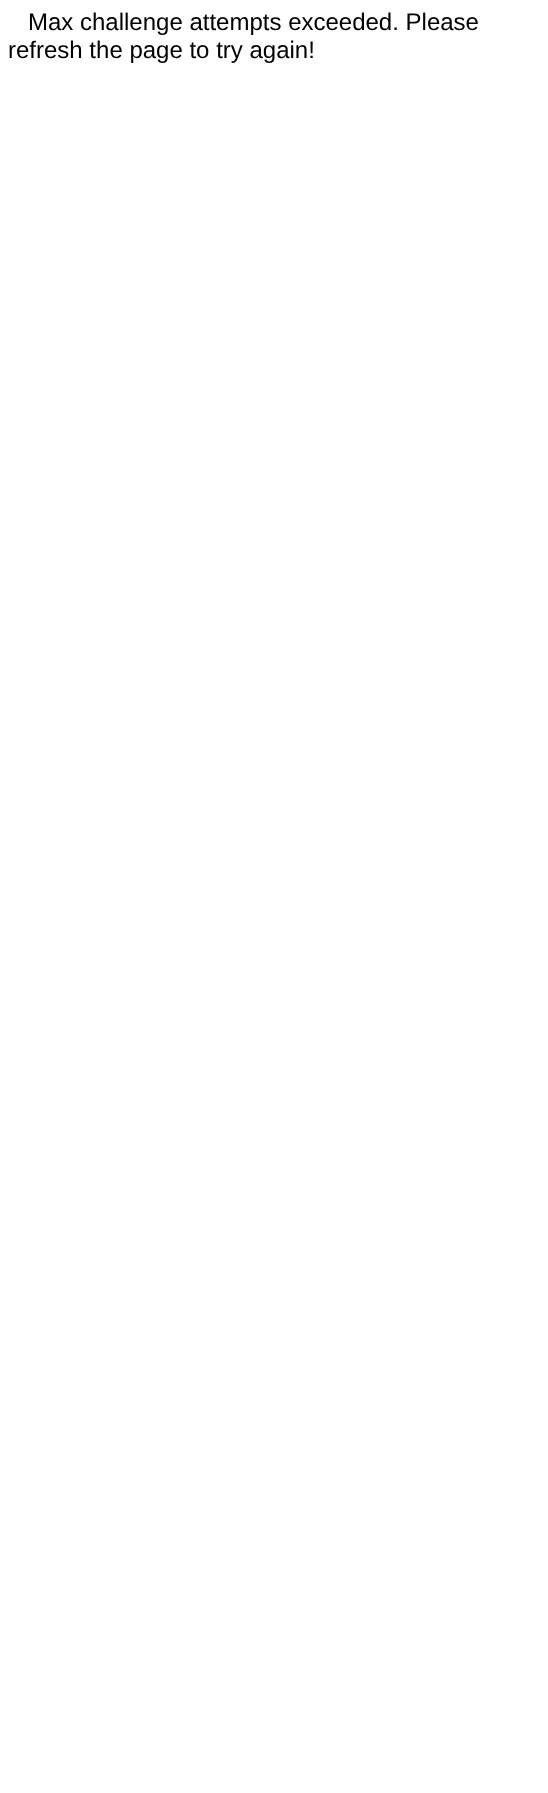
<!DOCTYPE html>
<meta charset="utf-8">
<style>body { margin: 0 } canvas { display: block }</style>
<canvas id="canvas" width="548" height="1793"></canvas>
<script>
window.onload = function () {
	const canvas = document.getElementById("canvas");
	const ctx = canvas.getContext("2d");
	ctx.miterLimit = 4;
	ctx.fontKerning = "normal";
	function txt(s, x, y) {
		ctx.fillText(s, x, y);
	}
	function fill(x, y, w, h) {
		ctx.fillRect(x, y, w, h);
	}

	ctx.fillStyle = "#FFFFFF";
	fill(0, 0, 548, 1793);
	ctx.font = "24px Liberation Sans";
	ctx.fillStyle = "#000000";
	txt("Max challenge attempts exceeded. Please", 28, 30);
	txt("refresh the page to try again!", 8, 58);
};
</script>
